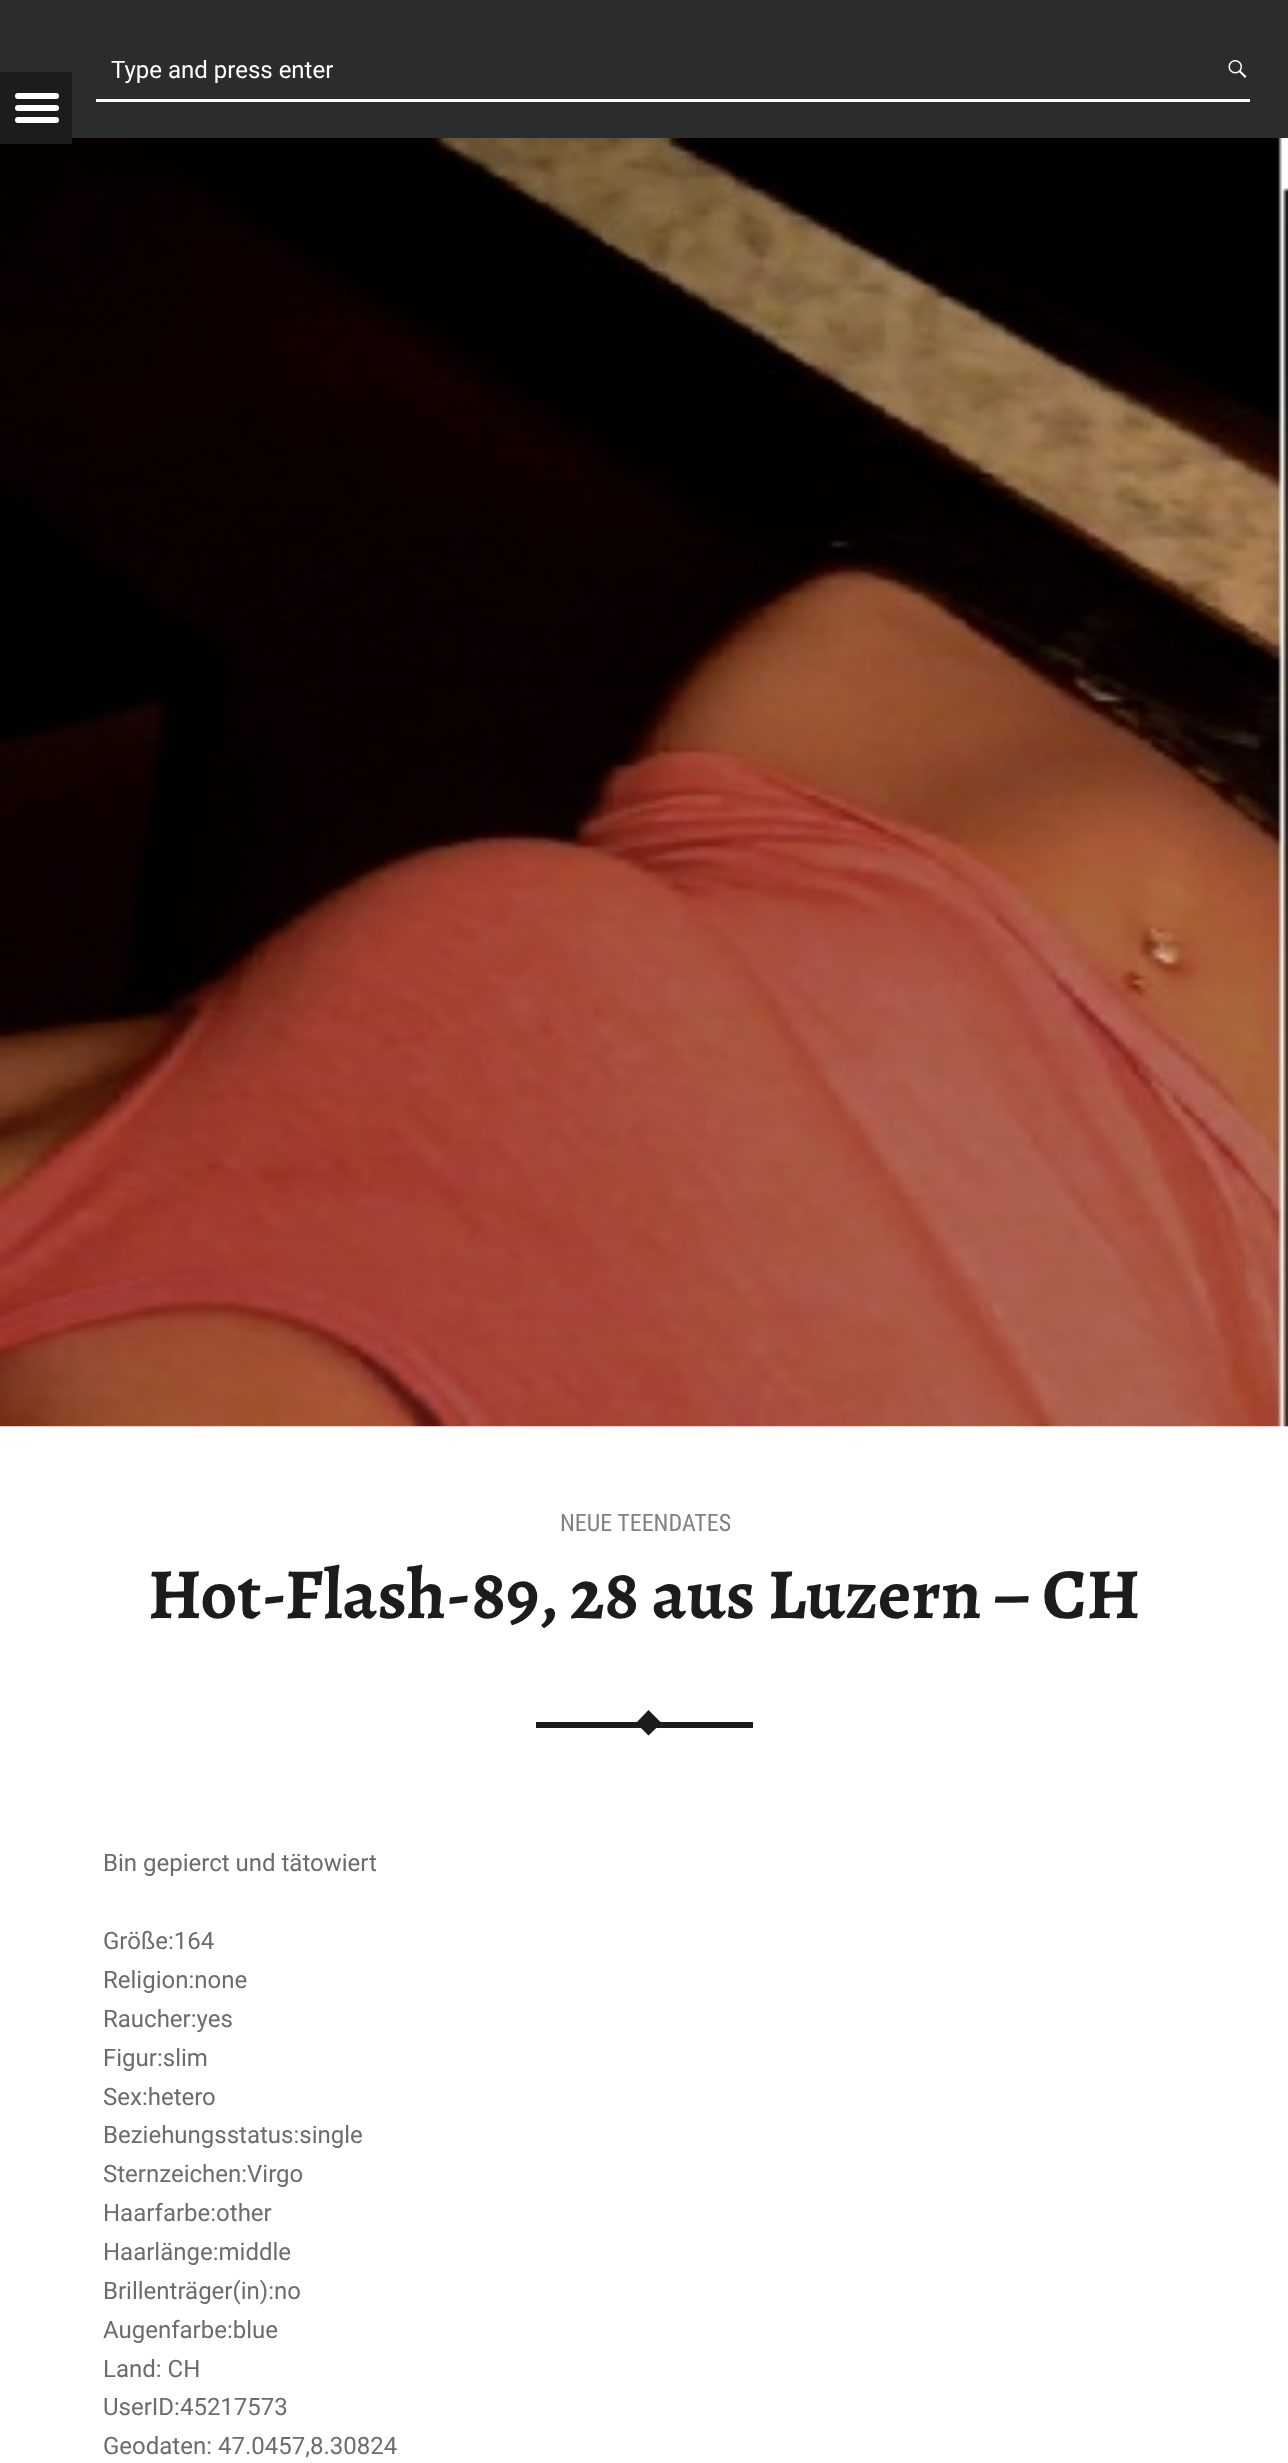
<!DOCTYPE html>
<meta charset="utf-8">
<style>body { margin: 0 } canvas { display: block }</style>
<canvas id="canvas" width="1288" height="2463"></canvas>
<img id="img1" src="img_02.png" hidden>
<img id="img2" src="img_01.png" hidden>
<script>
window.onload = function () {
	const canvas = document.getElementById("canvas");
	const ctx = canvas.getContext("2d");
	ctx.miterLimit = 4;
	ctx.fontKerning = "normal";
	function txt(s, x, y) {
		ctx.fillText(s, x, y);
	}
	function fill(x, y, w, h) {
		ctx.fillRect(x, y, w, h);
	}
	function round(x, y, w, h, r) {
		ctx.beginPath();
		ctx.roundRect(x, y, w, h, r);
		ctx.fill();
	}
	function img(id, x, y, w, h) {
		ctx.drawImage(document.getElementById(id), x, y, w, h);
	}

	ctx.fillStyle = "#FFFFFF";
	fill(0, 0, 1288, 2463);
	ctx.fillStyle = "#2A2C2E";
	fill(0, 0, 1288, 138);
	img("img1", 0, 138, 1288, 1289);
	ctx.fillStyle = "#1A1C1E";
	fill(0, 72, 72, 72);
	ctx.fillStyle = "#FFFFFF";
	round(15, 93, 44, 6, 3);
	round(15, 105, 44, 6, 3);
	round(15, 117, 44, 6, 3);
	fill(96, 99, 1154, 3);
	img("img2", 1228, 60, 19, 18);
	ctx.fillStyle = "#1A1C1E";
	fill(536, 1722, 217, 6);
	ctx.beginPath();
	ctx.moveTo(648.5, 1710);
	ctx.lineTo(661.5, 1723);
	ctx.lineTo(648.5, 1735.5);
	ctx.lineTo(636, 1723);
	ctx.closePath();
	ctx.fill();
	ctx.font = "24px Roboto";
	ctx.fillStyle = "#FFFFFF";
	txt("Type and press enter", 111, 78);
	ctx.font = "24px Roboto Condensed";
	ctx.fillStyle = "#808284";
	txt("NEUE TEENDATES", 560, 1531);
	ctx.font = "bold 72px Alegreya";
	ctx.fillStyle = "#1A1C1E";
	txt("Hot-Flash-89, 28 aus Luzern – CH", 148, 1618);
	ctx.font = "24px Roboto";
	ctx.fillStyle = "#6A6C6E";
	txt("Bin gepierct und tätowiert", 103, 1871);
	txt("Größe:164", 103, 1949);
	txt("Religion:none", 103, 1988);
	txt("Raucher:yes", 103, 2027);
	txt("Figur:slim", 103, 2066);
	txt("Sex:hetero", 103, 2105);
	txt("Beziehungsstatus:single", 103, 2143);
	txt("Sternzeichen:Virgo", 103, 2182);
	txt("Haarfarbe:other", 103, 2221);
	txt("Haarlänge:middle", 103, 2260);
	txt("Brillenträger(in):no", 103, 2299);
	txt("Augenfarbe:blue", 103, 2338);
	txt("Land: CH", 103, 2377);
	txt("UserID:45217573", 103, 2415);
	txt("Geodaten: 47.0457,8.30824", 103, 2454);
};
</script>
